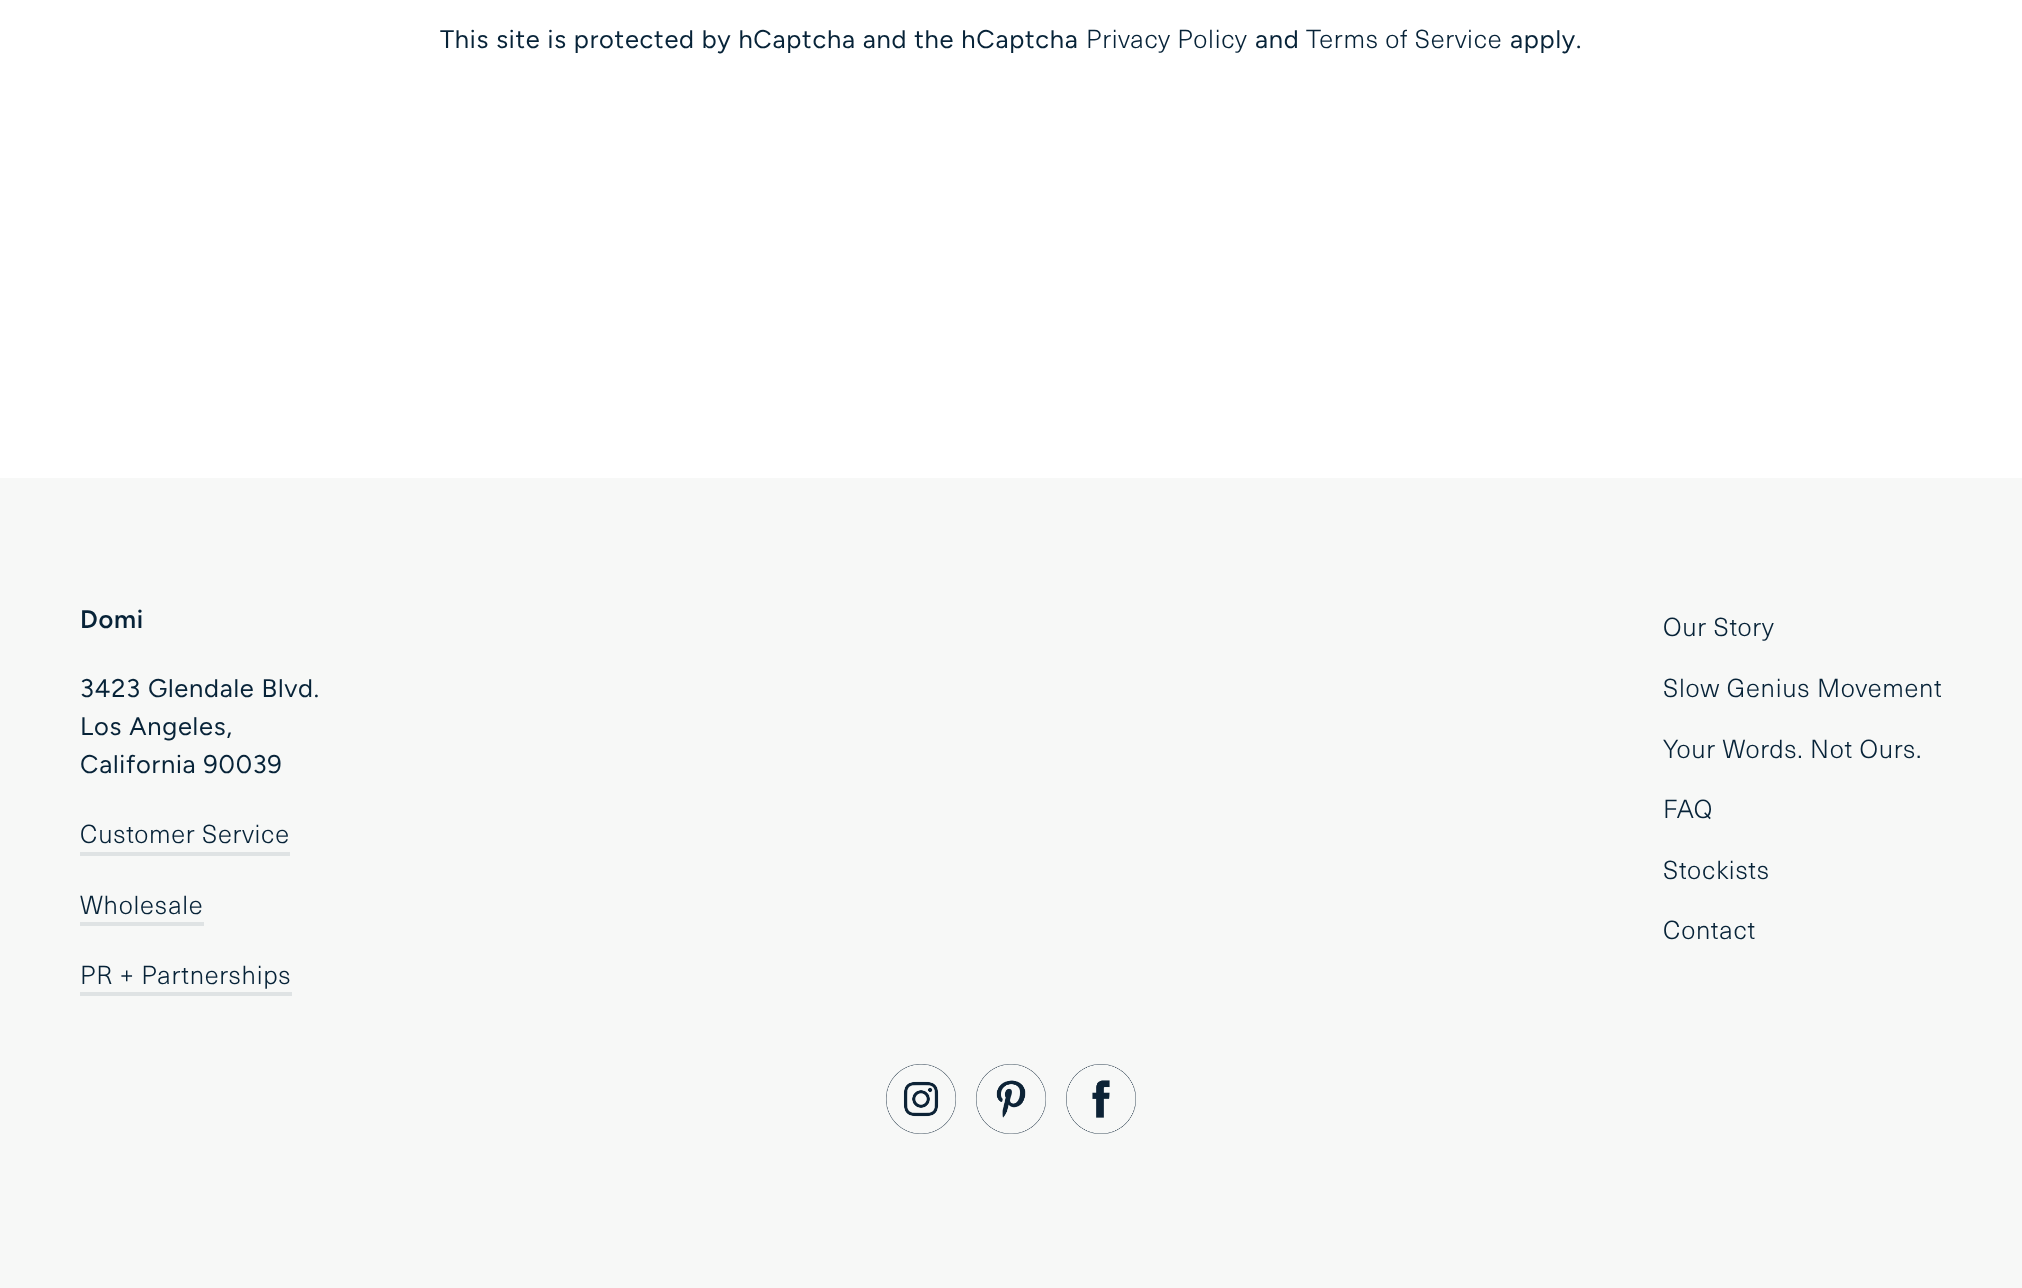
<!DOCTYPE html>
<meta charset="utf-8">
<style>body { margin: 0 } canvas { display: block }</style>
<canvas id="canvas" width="2022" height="1288"></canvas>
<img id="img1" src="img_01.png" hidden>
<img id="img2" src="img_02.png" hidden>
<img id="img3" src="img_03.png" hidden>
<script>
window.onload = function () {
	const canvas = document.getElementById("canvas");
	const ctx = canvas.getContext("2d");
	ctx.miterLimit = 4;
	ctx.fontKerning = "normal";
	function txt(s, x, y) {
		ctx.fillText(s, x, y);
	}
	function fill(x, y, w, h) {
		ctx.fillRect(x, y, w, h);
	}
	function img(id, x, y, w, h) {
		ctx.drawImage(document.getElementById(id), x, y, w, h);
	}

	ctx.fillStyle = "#FFFFFF";
	fill(0, 0, 2022, 1288);
	ctx.fillStyle = "#F7F8F7";
	fill(0, 478, 2022, 810);
	ctx.fillStyle = "#DFE3E4";
	fill(80, 852, 210, 4);
	fill(80, 922, 124, 4);
	fill(80, 992, 212, 4);
	img("img1", 886, 1064, 70, 70);
	img("img2", 976, 1064, 70, 70);
	img("img3", 1066, 1064, 70, 70);
	ctx.letterSpacing = "0.75px";
	ctx.font = "25.5px Figtree";
	ctx.fillStyle = "#072338";
	txt("This site is protected by hCaptcha and the hCaptcha", 440, 48);
	ctx.font = "300 25.5px 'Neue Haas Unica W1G'";
	txt("Privacy Policy", 1086, 48);
	ctx.font = "25.5px Figtree";
	txt("and", 1255, 48);
	ctx.font = "300 25.5px 'Neue Haas Unica W1G'";
	txt("Terms of Service", 1306, 48);
	ctx.font = "25.5px Figtree";
	txt("apply.", 1510, 48);
	ctx.font = "600 25.5px Figtree";
	txt("Domi", 80, 628);
	ctx.font = "25.5px Figtree";
	txt("3423 Glendale Blvd.", 80, 697);
	txt("Los Angeles,", 80, 735);
	txt("California 90039", 80, 773);
	ctx.font = "300 25.5px 'Neue Haas Unica W1G'";
	txt("Customer Service", 80, 843);
	txt("Wholesale", 80, 914);
	txt("PR + Partnerships", 80, 984);
	txt("Our Story", 1663, 636);
	txt("Slow Genius Movement", 1663, 697);
	txt("Your Words. Not Ours.", 1663, 758);
	txt("FAQ", 1663, 818);
	txt("Stockists", 1663, 879);
	txt("Contact", 1663, 939);
};
</script>
